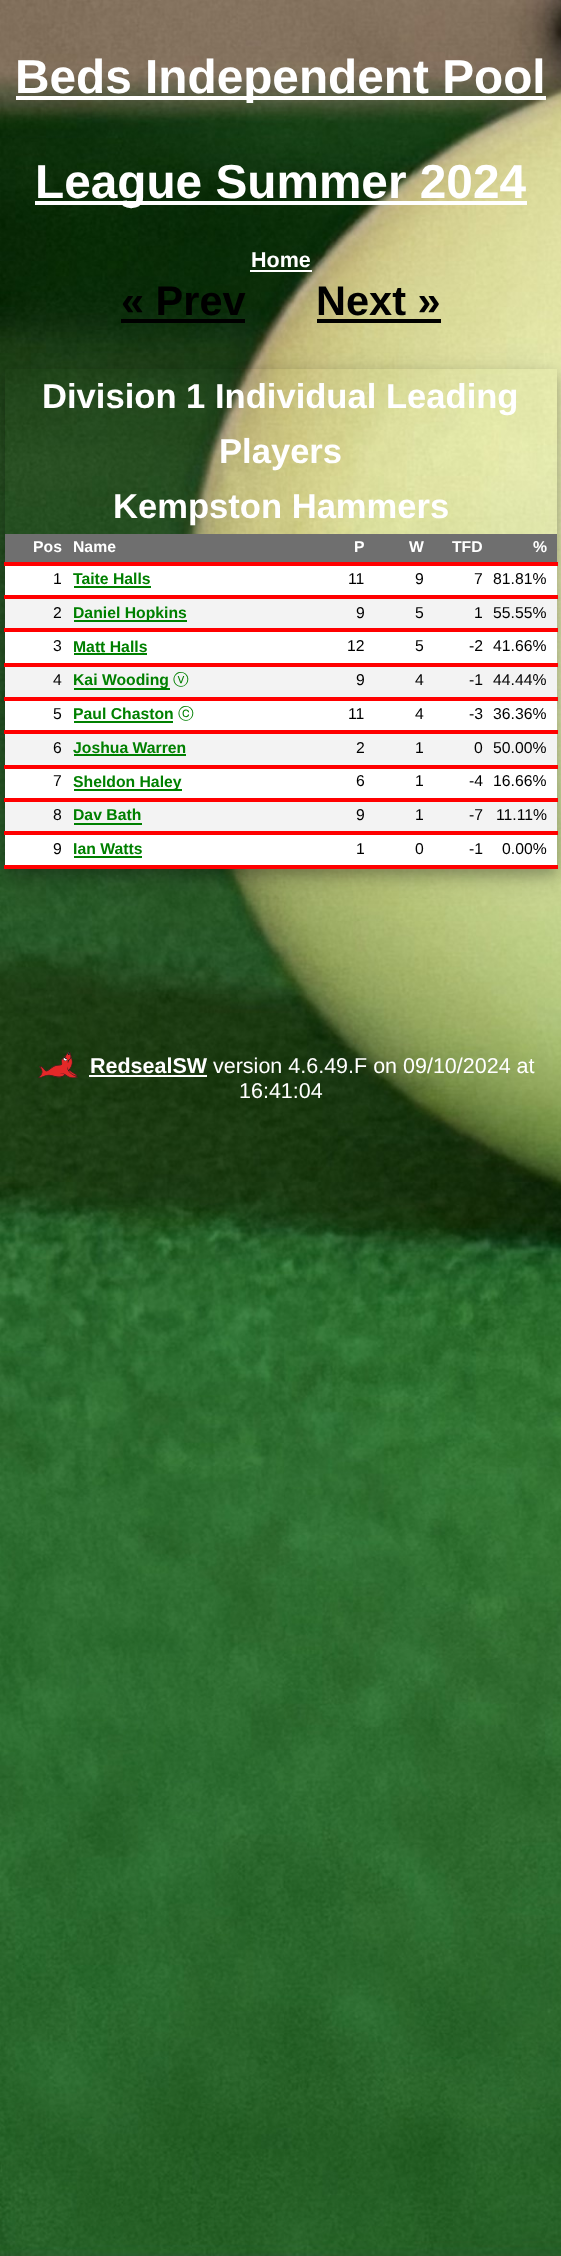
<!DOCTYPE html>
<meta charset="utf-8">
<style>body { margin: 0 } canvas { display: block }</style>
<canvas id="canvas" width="561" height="2256"></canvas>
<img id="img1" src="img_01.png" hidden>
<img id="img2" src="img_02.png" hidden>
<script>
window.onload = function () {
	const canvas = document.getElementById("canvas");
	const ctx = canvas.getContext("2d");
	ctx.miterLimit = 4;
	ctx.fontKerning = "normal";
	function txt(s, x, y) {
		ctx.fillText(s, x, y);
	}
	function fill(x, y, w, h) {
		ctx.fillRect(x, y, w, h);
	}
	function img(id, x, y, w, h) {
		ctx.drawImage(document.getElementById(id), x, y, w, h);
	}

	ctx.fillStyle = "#FFFFFF";
	fill(0, 0, 561, 2256);
	img("img1", 0, 0, 561, 2256);
	fill(16, 96, 530, 4);
	fill(35, 201, 492, 4);
	fill(250, 270, 62, 2);
	ctx.fillStyle = "#000000";
	fill(121, 319, 124, 4);
	fill(317, 319, 124, 4);
	ctx.save();
	ctx.beginPath();
	ctx.moveTo(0, 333);
	ctx.lineTo(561, 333);
	ctx.lineTo(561, 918);
	ctx.lineTo(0, 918);
	ctx.closePath();
	ctx.moveTo(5, 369);
	ctx.lineTo(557, 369);
	ctx.lineTo(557, 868);
	ctx.lineTo(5, 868);
	ctx.closePath();
	ctx.clip("evenodd");
	ctx.fillStyle = "rgba(0, 0, 0, 0.18)";
	ctx.filter = "blur(14px)";
	ctx.beginPath();
	ctx.rect(5, 376, 552, 499);
	ctx.fill();
	ctx.filter = "none";
	ctx.restore();
	ctx.save();
	ctx.beginPath();
	ctx.moveTo(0, 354);
	ctx.lineTo(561, 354);
	ctx.lineTo(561, 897);
	ctx.lineTo(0, 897);
	ctx.closePath();
	ctx.moveTo(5, 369);
	ctx.lineTo(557, 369);
	ctx.lineTo(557, 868);
	ctx.lineTo(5, 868);
	ctx.closePath();
	ctx.clip("evenodd");
	ctx.fillStyle = "rgba(0, 0, 0, 0.21)";
	ctx.filter = "blur(7px)";
	ctx.beginPath();
	ctx.rect(5, 376, 552, 499);
	ctx.fill();
	ctx.filter = "none";
	ctx.restore();
	ctx.fillStyle = "#6F6F6F";
	fill(5, 534, 552, 28);
	ctx.fillStyle = "#FFFFFF";
	fill(5, 566, 552, 29);
	ctx.fillStyle = "#008000";
	fill(74, 586, 77, 2);
	ctx.fillStyle = "#FF0000";
	fill(4, 562, 554, 4);
	ctx.fillStyle = "#F3F3F3";
	fill(5, 599, 552, 29);
	ctx.fillStyle = "#008000";
	fill(74, 620, 113, 2);
	ctx.fillStyle = "#FF0000";
	fill(4, 595, 554, 4);
	ctx.fillStyle = "#FFFFFF";
	fill(5, 632, 552, 31);
	ctx.fillStyle = "#008000";
	fill(74, 653, 73, 2);
	ctx.fillStyle = "#FF0000";
	fill(4, 628, 554, 4);
	ctx.fillStyle = "#F3F3F3";
	fill(5, 667, 552, 30);
	ctx.fillStyle = "#008000";
	fill(74, 688, 96, 2);
	ctx.fillStyle = "#FF0000";
	fill(4, 663, 554, 4);
	ctx.fillStyle = "#FFFFFF";
	fill(5, 701, 552, 29);
	ctx.fillStyle = "#008000";
	fill(74, 721, 99, 2);
	ctx.fillStyle = "#FF0000";
	fill(4, 697, 554, 4);
	ctx.fillStyle = "#F3F3F3";
	fill(5, 734, 552, 31);
	ctx.fillStyle = "#008000";
	fill(74, 754, 112, 2);
	ctx.fillStyle = "#FF0000";
	fill(4, 730, 554, 4);
	ctx.fillStyle = "#FFFFFF";
	fill(5, 769, 552, 29);
	ctx.fillStyle = "#008000";
	fill(74, 789, 108, 2);
	ctx.fillStyle = "#FF0000";
	fill(4, 765, 554, 4);
	ctx.fillStyle = "#F3F3F3";
	fill(5, 802, 552, 29);
	ctx.fillStyle = "#008000";
	fill(74, 823, 68, 2);
	ctx.fillStyle = "#FF0000";
	fill(4, 798, 554, 4);
	ctx.fillStyle = "#FFFFFF";
	fill(5, 835, 552, 30);
	ctx.fillStyle = "#008000";
	fill(74, 856, 68, 2);
	ctx.fillStyle = "#FF0000";
	fill(4, 831, 554, 4);
	fill(4, 865, 554, 4);
	img("img2", 38, 1052, 40, 26);
	ctx.fillStyle = "#FFFFFF";
	fill(89, 1075, 118, 2);
	ctx.font = "bold 47.75px Liberation Sans";
	txt("Beds Independent Pool", 15, 93);
	txt("League Summer 2024", 35, 198);
	ctx.font = "bold 21.5px Liberation Sans";
	txt("Home", 251, 267);
	ctx.font = "bold 41.5px Liberation Sans";
	ctx.fillStyle = "#000000";
	txt("« Prev", 121, 315);
	txt("Next »", 316, 315);
	ctx.font = "bold 34.6px Liberation Sans";
	ctx.fillStyle = "#FFFFFF";
	txt("Division 1 Individual Leading", 42, 408);
	txt("Players", 219, 463);
	txt("Kempston Hammers", 113, 518);
	ctx.font = "bold 15.75px Liberation Sans";
	txt("Pos", 33, 552);
	txt("Name", 73, 552);
	txt("P", 354, 552);
	txt("W", 409, 552);
	txt("TFD", 452, 552);
	txt("%", 533, 552);
	ctx.font = "15.75px Liberation Sans";
	ctx.fillStyle = "#000000";
	txt("1", 53, 584);
	ctx.font = "bold 15.75px Liberation Sans";
	ctx.fillStyle = "#008000";
	txt("Taite Halls", 73, 584);
	ctx.font = "15.75px Liberation Sans";
	ctx.fillStyle = "#000000";
	txt("11", 348, 584);
	txt("9", 415, 584);
	txt("7", 474, 584);
	txt("81.81%", 493, 584);
	txt("2", 53, 618);
	ctx.font = "bold 15.75px Liberation Sans";
	ctx.fillStyle = "#008000";
	txt("Daniel Hopkins", 73, 618);
	ctx.font = "15.75px Liberation Sans";
	ctx.fillStyle = "#000000";
	txt("9", 356, 618);
	txt("5", 415, 618);
	txt("1", 474, 618);
	txt("55.55%", 493, 618);
	txt("3", 53, 651);
	ctx.font = "bold 15.75px Liberation Sans";
	ctx.fillStyle = "#008000";
	txt("Matt Halls", 73, 652);
	ctx.font = "15.75px Liberation Sans";
	ctx.fillStyle = "#000000";
	txt("12", 347, 651);
	txt("5", 415, 651);
	txt("-2", 469, 651);
	txt("41.66%", 493, 651);
	txt("4", 53, 685);
	ctx.font = "bold 15.75px Liberation Sans";
	ctx.fillStyle = "#008000";
	txt("Kai Wooding", 73, 685);
	ctx.font = "500 15.75px WenQuanYi Zen Hei";
	txt("ⓥ", 173, 685);
	ctx.font = "15.75px Liberation Sans";
	ctx.fillStyle = "#000000";
	txt("9", 356, 685);
	txt("4", 415, 685);
	txt("-1", 469, 685);
	txt("44.44%", 493, 685);
	txt("5", 53, 719);
	ctx.font = "bold 15.75px Liberation Sans";
	ctx.fillStyle = "#008000";
	txt("Paul Chaston", 73, 719);
	ctx.font = "500 15.75px WenQuanYi Zen Hei";
	txt("ⓒ", 178, 719);
	ctx.font = "15.75px Liberation Sans";
	ctx.fillStyle = "#000000";
	txt("11", 348, 719);
	txt("4", 415, 719);
	txt("-3", 469, 719);
	txt("36.36%", 493, 719);
	txt("6", 53, 753);
	ctx.font = "bold 15.75px Liberation Sans";
	ctx.fillStyle = "#008000";
	txt("Joshua Warren", 73, 753);
	ctx.font = "15.75px Liberation Sans";
	ctx.fillStyle = "#000000";
	txt("2", 356, 753);
	txt("1", 415, 753);
	txt("0", 474, 753);
	txt("50.00%", 493, 753);
	txt("7", 53, 786);
	ctx.font = "bold 15.75px Liberation Sans";
	ctx.fillStyle = "#008000";
	txt("Sheldon Haley", 73, 787);
	ctx.font = "15.75px Liberation Sans";
	ctx.fillStyle = "#000000";
	txt("6", 356, 786);
	txt("1", 415, 786);
	txt("-4", 469, 786);
	txt("16.66%", 493, 786);
	txt("8", 53, 820);
	ctx.font = "bold 15.75px Liberation Sans";
	ctx.fillStyle = "#008000";
	txt("Dav Bath", 73, 820);
	ctx.font = "15.75px Liberation Sans";
	ctx.fillStyle = "#000000";
	txt("9", 356, 820);
	txt("1", 415, 820);
	txt("-7", 469, 820);
	txt("11.11%", 496, 820);
	txt("9", 53, 854);
	ctx.font = "bold 15.75px Liberation Sans";
	ctx.fillStyle = "#008000";
	txt("Ian Watts", 73, 854);
	ctx.font = "15.75px Liberation Sans";
	ctx.fillStyle = "#000000";
	txt("1", 356, 854);
	txt("0", 415, 854);
	txt("-1", 469, 854);
	txt("0.00%", 502, 854);
	ctx.font = "bold 21.5px Liberation Sans";
	ctx.fillStyle = "#FFFFFF";
	txt("RedsealSW", 90, 1073);
	ctx.font = "21.5px Liberation Sans";
	txt("version 4.6.49.F on 09/10/2024 at", 213, 1073);
	txt("16:41:04", 239, 1098);
};
</script>
